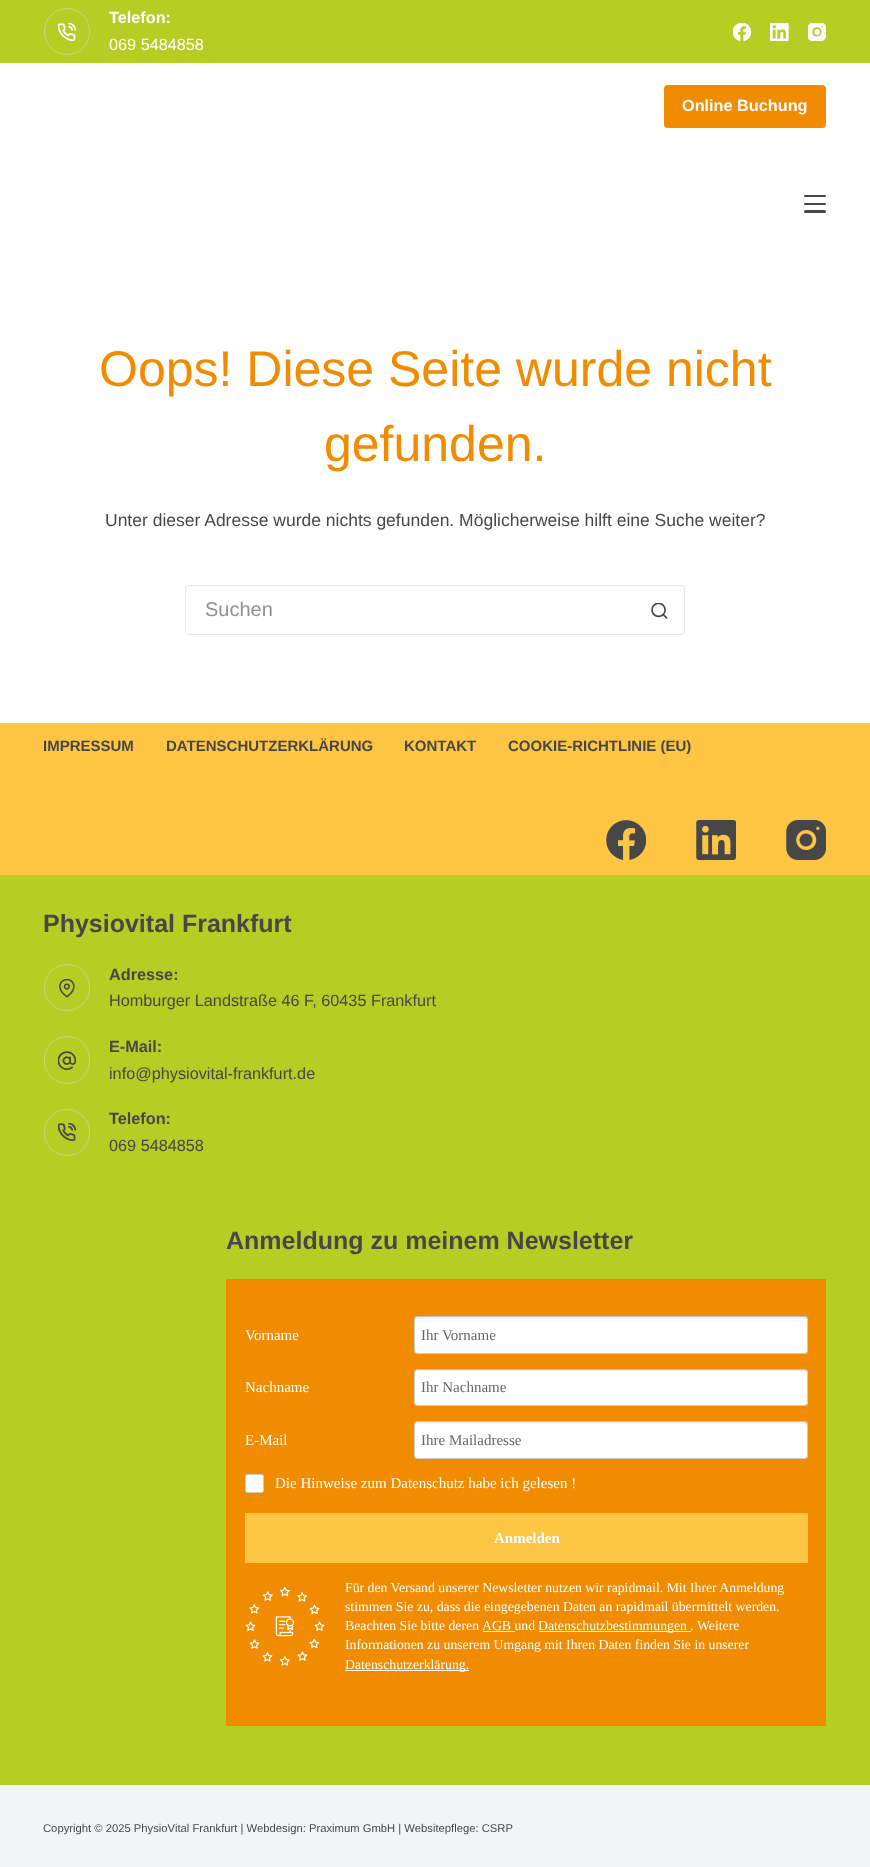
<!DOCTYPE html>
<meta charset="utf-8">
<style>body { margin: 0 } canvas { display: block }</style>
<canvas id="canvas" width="870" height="1867"></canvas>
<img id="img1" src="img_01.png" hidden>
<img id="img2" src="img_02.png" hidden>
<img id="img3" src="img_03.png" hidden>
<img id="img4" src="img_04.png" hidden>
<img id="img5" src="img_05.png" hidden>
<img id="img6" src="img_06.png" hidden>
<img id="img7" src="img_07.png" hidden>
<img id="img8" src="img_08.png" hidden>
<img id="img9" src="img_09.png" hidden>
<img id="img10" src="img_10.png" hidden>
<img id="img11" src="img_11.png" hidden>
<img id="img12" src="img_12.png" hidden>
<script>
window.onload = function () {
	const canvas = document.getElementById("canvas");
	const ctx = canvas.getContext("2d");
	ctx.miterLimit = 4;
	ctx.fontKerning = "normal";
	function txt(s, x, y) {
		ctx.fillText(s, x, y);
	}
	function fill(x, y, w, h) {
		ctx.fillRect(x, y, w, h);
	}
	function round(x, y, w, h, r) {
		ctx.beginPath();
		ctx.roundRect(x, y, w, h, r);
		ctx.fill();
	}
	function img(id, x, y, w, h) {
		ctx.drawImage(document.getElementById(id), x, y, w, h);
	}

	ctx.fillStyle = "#FFFFFF";
	fill(0, 0, 870, 1867);
	ctx.fillStyle = "#B6CD23";
	fill(0, 0, 870, 63);
	ctx.beginPath();
	ctx.roundRect(44.5, 8.5, 45, 46, 22.5);
	ctx.strokeStyle = "#C8D684";
	ctx.stroke();
	img("img1", 58, 23, 18, 18);
	img("img2", 733, 23, 18, 18);
	img("img3", 770, 23, 19, 18);
	img("img4", 808, 23, 18, 18);
	ctx.fillStyle = "#F18B00";
	round(664, 85, 162, 43, 4);
	ctx.fillStyle = "#474747";
	round(804, 195, 22, 2, 1);
	round(804, 203, 22, 2, 1);
	round(804, 210, 22, 3, 1.5);
	ctx.fillStyle = "#E1E8ED";
	ctx.beginPath();
	ctx.moveTo(189, 585);
	ctx.lineTo(635, 585);
	ctx.lineTo(635, 635);
	ctx.lineTo(189, 635);
	ctx.bezierCurveTo(187, 635, 185, 633, 185, 631);
	ctx.lineTo(185, 589);
	ctx.bezierCurveTo(185, 587, 187, 585, 189, 585);
	ctx.closePath();
	ctx.moveTo(189, 586);
	ctx.lineTo(635, 586);
	ctx.lineTo(635, 634);
	ctx.lineTo(189, 634);
	ctx.bezierCurveTo(187, 634, 186, 633, 186, 631);
	ctx.lineTo(186, 589);
	ctx.bezierCurveTo(186, 587, 187, 586, 189, 586);
	ctx.closePath();
	ctx.fill("evenodd");
	ctx.beginPath();
	ctx.moveTo(635, 585);
	ctx.lineTo(681, 585);
	ctx.bezierCurveTo(683, 585, 685, 587, 685, 589);
	ctx.lineTo(685, 631);
	ctx.bezierCurveTo(685, 633, 683, 635, 681, 635);
	ctx.lineTo(635, 635);
	ctx.closePath();
	ctx.moveTo(635, 586);
	ctx.lineTo(681, 586);
	ctx.bezierCurveTo(683, 586, 684, 587, 684, 589);
	ctx.lineTo(684, 631);
	ctx.bezierCurveTo(684, 633, 683, 634, 681, 634);
	ctx.lineTo(635, 634);
	ctx.closePath();
	ctx.fill("evenodd");
	img("img5", 651, 603, 17, 16);
	ctx.fillStyle = "#F2F5F7";
	fill(0, 1785, 870, 82);
	ctx.fillStyle = "#FDC543";
	fill(0, 723, 870, 152);
	img("img6", 606, 820, 40, 40);
	img("img7", 696, 820, 40, 40);
	img("img8", 786, 820, 40, 40);
	ctx.fillStyle = "#B6CD23";
	fill(0, 875, 870, 910);
	ctx.beginPath();
	ctx.roundRect(44.5, 964.5, 45, 46, 22.5);
	ctx.stroke();
	img("img9", 59, 979, 16, 19);
	ctx.beginPath();
	ctx.roundRect(44.5, 1036.5, 45, 47, 22.5);
	ctx.stroke();
	img("img10", 58, 1051, 18, 19);
	ctx.beginPath();
	ctx.roundRect(44.5, 1109.5, 45, 46, 22.5);
	ctx.stroke();
	img("img11", 58, 1123, 18, 18);
	ctx.fillStyle = "#F18B00";
	fill(226, 1279, 600, 447);
	ctx.fillStyle = "#FFFFFF";
	round(414, 1316, 394, 38, 4);
	ctx.beginPath();
	ctx.roundRect(414.5, 1316.5, 393, 37, 3.5);
	ctx.strokeStyle = "rgba(0, 0, 0, 0.2)";
	ctx.stroke();
	ctx.fillStyle = "rgba(0, 0, 0, 0.05)";
	ctx.beginPath();
	ctx.moveTo(418, 1319);
	ctx.lineTo(804, 1319);
	ctx.bezierCurveTo(806, 1319, 808, 1320, 808, 1322);
	ctx.lineTo(808, 1320);
	ctx.bezierCurveTo(808, 1318, 806, 1316, 804, 1316);
	ctx.lineTo(418, 1316);
	ctx.bezierCurveTo(416, 1316, 414, 1318, 414, 1320);
	ctx.lineTo(414, 1322);
	ctx.bezierCurveTo(414, 1320, 415, 1319, 418, 1319);
	ctx.closePath();
	ctx.fill();
	ctx.fillStyle = "#FFFFFF";
	round(414, 1369, 394, 37, 4);
	ctx.beginPath();
	ctx.roundRect(414.5, 1369.5, 393, 36, 3.5);
	ctx.stroke();
	ctx.fillStyle = "rgba(0, 0, 0, 0.05)";
	ctx.beginPath();
	ctx.moveTo(418, 1371);
	ctx.lineTo(804, 1371);
	ctx.bezierCurveTo(806, 1371, 808, 1373, 808, 1375);
	ctx.lineTo(808, 1373);
	ctx.bezierCurveTo(808, 1371, 806, 1369, 804, 1369);
	ctx.lineTo(418, 1369);
	ctx.bezierCurveTo(416, 1369, 414, 1371, 414, 1373);
	ctx.lineTo(414, 1375);
	ctx.bezierCurveTo(414, 1373, 415, 1371, 418, 1371);
	ctx.closePath();
	ctx.fill();
	ctx.fillStyle = "#FFFFFF";
	round(414, 1421, 394, 38, 4);
	ctx.beginPath();
	ctx.roundRect(414.5, 1421.5, 393, 37, 3.5);
	ctx.stroke();
	ctx.fillStyle = "rgba(0, 0, 0, 0.05)";
	ctx.beginPath();
	ctx.moveTo(418, 1424);
	ctx.lineTo(804, 1424);
	ctx.bezierCurveTo(806, 1424, 808, 1425, 808, 1428);
	ctx.lineTo(808, 1425);
	ctx.bezierCurveTo(808, 1423, 806, 1421, 804, 1421);
	ctx.lineTo(418, 1421);
	ctx.bezierCurveTo(416, 1421, 414, 1423, 414, 1425);
	ctx.lineTo(414, 1428);
	ctx.bezierCurveTo(414, 1425, 415, 1424, 418, 1424);
	ctx.closePath();
	ctx.fill();
	ctx.fillStyle = "#FFFFFF";
	ctx.beginPath();
	ctx.roundRect(245.5, 1474.5, 18, 18, 2);
	ctx.fill();
	ctx.strokeStyle = "#CCCCCC";
	ctx.stroke();
	ctx.fillStyle = "#FCC644";
	fill(245, 1513, 563, 50);
	img("img12", 245, 1586, 80, 80);
	ctx.fillStyle = "#FFFFFF";
	fill(483, 1631, 32, 1);
	fill(539, 1631, 152, 1);
	fill(345, 1670, 124, 1);
	ctx.font = "bold 16.25px Liberation Sans";
	txt("Telefon:", 109, 23);
	ctx.font = "16.25px Liberation Sans";
	txt("069 5484858", 109, 50);
	ctx.font = "bold 16.25px Liberation Sans";
	txt("Online Buchung", 682, 111);
	ctx.font = "50px Liberation Sans";
	ctx.fillStyle = "#F18B00";
	txt("Oops! Diese Seite wurde nicht", 99, 386);
	txt("gefunden.", 324, 461);
	ctx.font = "17.5px Liberation Sans";
	ctx.fillStyle = "#474747";
	txt("Unter dieser Adresse wurde nichts gefunden. Möglicherweise hilft eine Suche weiter?", 105, 526);
	ctx.font = "20px Liberation Sans";
	ctx.fillStyle = "#919191";
	txt("Suchen", 205, 616);
	ctx.font = "bold 15px Liberation Sans";
	ctx.fillStyle = "#474747";
	txt("IMPRESSUM", 43, 751);
	txt("DATENSCHUTZERKLÄRUNG", 166, 751);
	txt("KONTAKT", 404, 751);
	txt("COOKIE-RICHTLINIE (EU)", 508, 751);
	ctx.font = "bold 25px Liberation Sans";
	txt("Physiovital Frankfurt", 43, 932);
	ctx.font = "bold 16.25px Liberation Sans";
	txt("Adresse:", 109, 980);
	ctx.font = "16.25px Liberation Sans";
	txt("Homburger Landstraße 46 F, 60435 Frankfurt", 109, 1006);
	ctx.font = "bold 16.25px Liberation Sans";
	txt("E-Mail:", 109, 1052);
	ctx.font = "16.25px Liberation Sans";
	txt("info@physiovital-frankfurt.de", 109, 1079);
	ctx.font = "bold 16.25px Liberation Sans";
	txt("Telefon:", 109, 1124);
	ctx.font = "16.25px Liberation Sans";
	txt("069 5484858", 109, 1151);
	ctx.font = "bold 25px Liberation Sans";
	txt("Anmeldung zu meinem Newsletter", 226, 1249);
	ctx.font = "15px Liberation Serif";
	ctx.fillStyle = "#FFFFFF";
	txt("Vorname", 245, 1340);
	ctx.fillStyle = "#666666";
	txt("Ihr Vorname", 421, 1340);
	ctx.fillStyle = "#FFFFFF";
	txt("Nachname", 245, 1392);
	ctx.fillStyle = "#666666";
	txt("Ihr Nachname", 421, 1392);
	ctx.fillStyle = "#FFFFFF";
	txt("E-Mail", 245, 1445);
	ctx.fillStyle = "#666666";
	txt("Ihre Mailadresse", 421, 1445);
	ctx.fillStyle = "#FFFFFF";
	txt("Die Hinweise zum Datenschutz habe ich gelesen !", 275, 1488);
	ctx.font = "bold 15px Liberation Serif";
	txt("Anmelden", 494, 1543);
	ctx.font = "13.75px Liberation Serif";
	txt("Für den Versand unserer Newsletter nutzen wir rapidmail. Mit Ihrer Anmeldung", 345, 1592);
	txt("stimmen Sie zu, dass die eingegebenen Daten an rapidmail übermittelt werden.", 345, 1611);
	txt("Beachten Sie bitte deren", 345, 1630);
	txt("AGB und", 482, 1630);
	txt("Datenschutzbestimmungen . Weitere", 538, 1630);
	txt("Informationen zu unserem Umgang mit Ihren Daten finden Sie in unserer", 345, 1649);
	txt("Datenschutzerklärung.", 345, 1669);
	ctx.font = "11.25px Liberation Sans";
	ctx.fillStyle = "#474747";
	txt("Copyright © 2025 PhysioVital Frankfurt | Webdesign: Praximum GmbH | Websitepflege: CSRP", 43, 1832);
};
</script>
